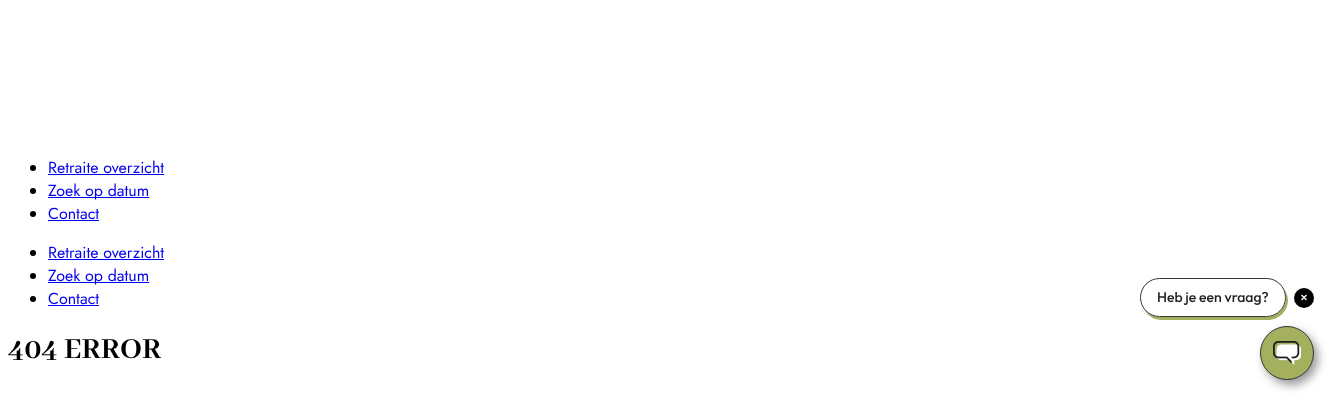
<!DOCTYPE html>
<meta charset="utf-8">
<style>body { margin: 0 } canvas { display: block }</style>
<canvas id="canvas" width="1334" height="400"></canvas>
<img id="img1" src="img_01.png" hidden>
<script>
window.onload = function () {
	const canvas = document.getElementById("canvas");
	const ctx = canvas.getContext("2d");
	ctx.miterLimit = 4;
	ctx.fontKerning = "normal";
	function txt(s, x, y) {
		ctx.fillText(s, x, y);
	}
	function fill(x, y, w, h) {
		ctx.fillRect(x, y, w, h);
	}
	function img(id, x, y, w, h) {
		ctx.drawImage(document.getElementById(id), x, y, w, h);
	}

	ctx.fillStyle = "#FFFFFF";
	fill(0, 0, 1334, 400);
	ctx.fillStyle = "#000000";
	ctx.beginPath();
	ctx.arc(33, 168, 3, 0, Math.PI * 2);
	ctx.fill();
	ctx.fillStyle = "#0000EE";
	fill(48, 174, 116, 1);
	ctx.fillStyle = "#000000";
	ctx.beginPath();
	ctx.arc(33, 191, 3, 0, Math.PI * 2);
	ctx.fill();
	ctx.fillStyle = "#0000EE";
	fill(48, 197, 101, 1);
	ctx.fillStyle = "#000000";
	ctx.beginPath();
	ctx.arc(33, 214, 3, 0, Math.PI * 2);
	ctx.fill();
	ctx.fillStyle = "#0000EE";
	fill(48, 220, 51, 1);
	ctx.fillStyle = "#000000";
	ctx.beginPath();
	ctx.arc(33, 253, 3, 0, Math.PI * 2);
	ctx.fill();
	ctx.fillStyle = "#0000EE";
	fill(48, 259, 116, 1);
	ctx.fillStyle = "#000000";
	ctx.beginPath();
	ctx.arc(33, 276, 3, 0, Math.PI * 2);
	ctx.fill();
	ctx.fillStyle = "#0000EE";
	fill(48, 282, 101, 1);
	ctx.fillStyle = "#000000";
	ctx.beginPath();
	ctx.arc(33, 299, 3, 0, Math.PI * 2);
	ctx.fill();
	ctx.fillStyle = "#0000EE";
	fill(48, 305, 51, 1);
	ctx.fillStyle = "rgba(0, 0, 0, 0.4)";
	ctx.filter = "blur(5px)";
	ctx.beginPath();
	ctx.roundRect(1264, 331, 54, 54, 27);
	ctx.fill();
	ctx.filter = "none";
	ctx.fillStyle = "#A5B05F";
	ctx.beginPath();
	ctx.moveTo(1144, 310);
	ctx.bezierCurveTo(1148, 316, 1154, 320, 1162, 320);
	ctx.lineTo(1268, 320);
	ctx.bezierCurveTo(1279, 320, 1288, 311, 1288, 300);
	ctx.bezierCurveTo(1288, 296, 1286, 292, 1284, 288);
	ctx.bezierCurveTo(1285, 291, 1286, 294, 1286, 298);
	ctx.bezierCurveTo(1286, 308, 1277, 317, 1266, 317);
	ctx.lineTo(1160, 317);
	ctx.bezierCurveTo(1153, 317, 1148, 314, 1144, 310);
	ctx.closePath();
	ctx.fill();
	ctx.fillStyle = "#FFFFFF";
	ctx.beginPath();
	ctx.roundRect(1140.5, 278.5, 145, 38, 19);
	ctx.fill();
	ctx.strokeStyle = "#363636";
	ctx.stroke();
	ctx.fillStyle = "#000000";
	ctx.beginPath();
	ctx.arc(1304, 298, 10, 0, Math.PI * 2);
	ctx.fill();
	ctx.beginPath();
	ctx.moveTo(1301.5, 295);
	ctx.lineTo(1306.5, 300);
	ctx.moveTo(1301.5, 300);
	ctx.lineTo(1306.5, 295);
	ctx.strokeStyle = "#FFFFFF";
	ctx.lineWidth = 1.3;
	ctx.stroke();
	ctx.fillStyle = "#A5B05F";
	ctx.beginPath();
	ctx.arc(1287, 353, 26.5, 0, Math.PI * 2);
	ctx.fill();
	ctx.strokeStyle = "#363636";
	ctx.lineWidth = 1;
	ctx.stroke();
	img("img1", 1273, 341, 28, 24);
	ctx.font = "16px Jost";
	ctx.fillStyle = "#0000EE";
	txt("Retraite overzicht", 48, 173);
	txt("Zoek op datum", 48, 196);
	txt("Contact", 48, 219);
	txt("Retraite overzicht", 48, 258);
	txt("Zoek op datum", 48, 281);
	txt("Contact", 48, 304);
	ctx.font = "500 14px Outfit";
	ctx.fillStyle = "#202020";
	txt("Heb je een vraag?", 1157, 302);
	ctx.font = "bold 32px Abhaya Libre";
	ctx.fillStyle = "#000000";
	txt("404 ERROR", 8, 358);
};
</script>
